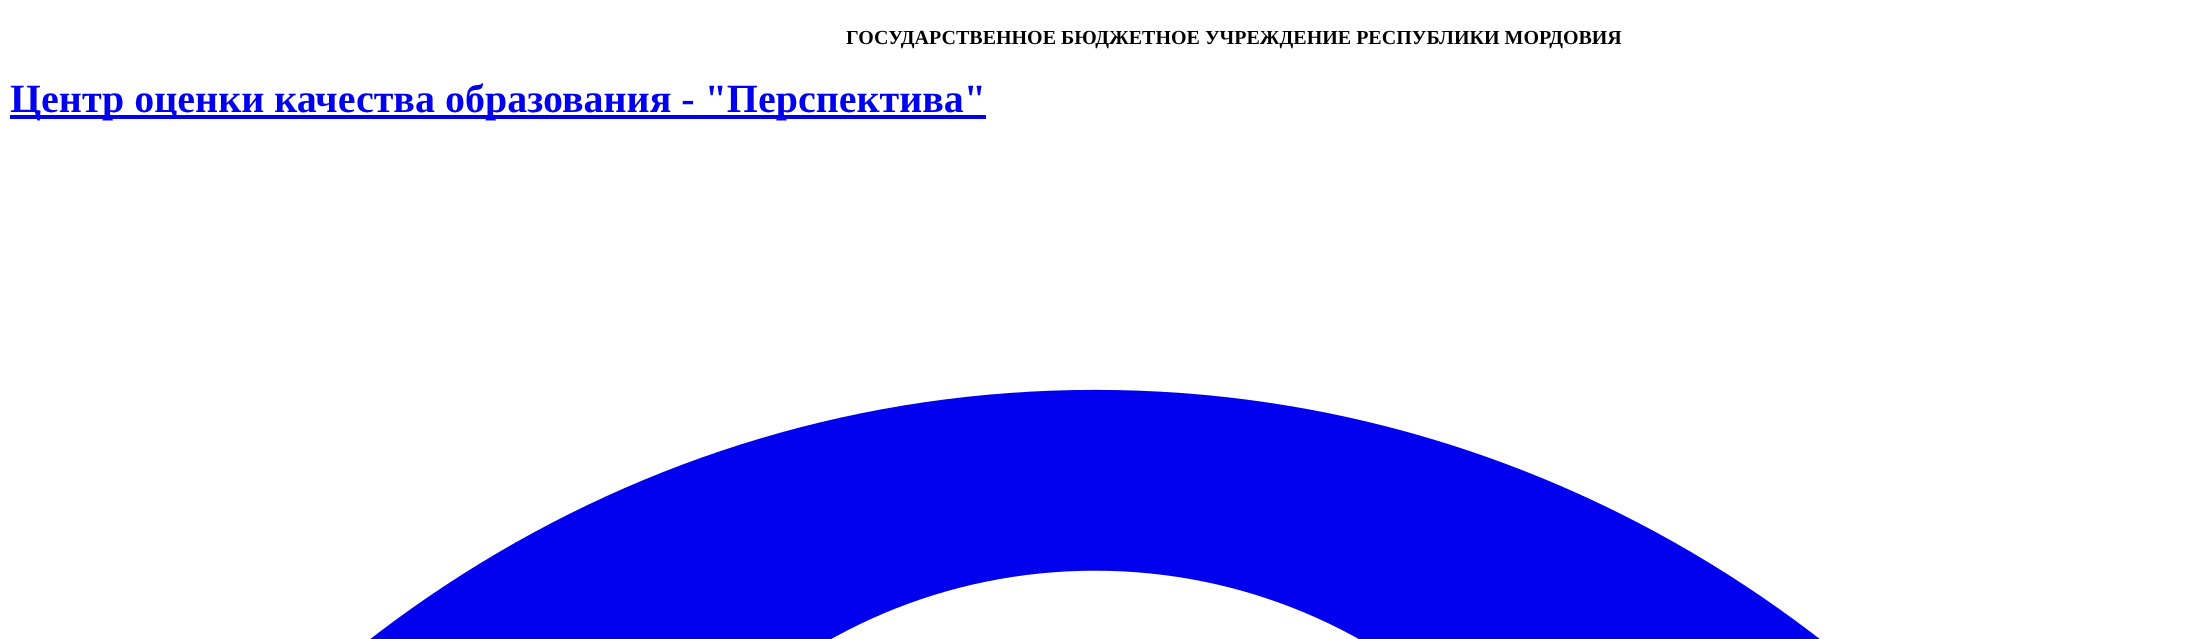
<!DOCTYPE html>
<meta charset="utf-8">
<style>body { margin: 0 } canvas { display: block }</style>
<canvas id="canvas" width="2189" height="639"></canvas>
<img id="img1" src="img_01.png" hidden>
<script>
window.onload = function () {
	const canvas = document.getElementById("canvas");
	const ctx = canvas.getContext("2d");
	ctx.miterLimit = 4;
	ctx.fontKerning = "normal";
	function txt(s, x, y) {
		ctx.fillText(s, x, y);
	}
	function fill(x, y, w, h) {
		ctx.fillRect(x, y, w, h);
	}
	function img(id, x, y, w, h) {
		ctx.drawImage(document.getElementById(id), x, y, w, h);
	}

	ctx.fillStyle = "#FFFFFF";
	fill(0, 0, 2189, 639);
	ctx.fillStyle = "#0000EE";
	fill(10, 115, 976, 4);
	img("img1", 370, 389, 1450, 250);
	ctx.font = "bold 20px Liberation Serif";
	ctx.fillStyle = "#000000";
	txt("ГОСУДАРСТВЕННОЕ БЮДЖЕТНОЕ УЧРЕЖДЕНИЕ РЕСПУБЛИКИ МОРДОВИЯ", 846, 44);
	ctx.font = "bold 40px Liberation Serif";
	ctx.fillStyle = "#0000EE";
	txt("Центр оценки качества образования - \"Перспектива\"", 10, 112);
};
</script>
